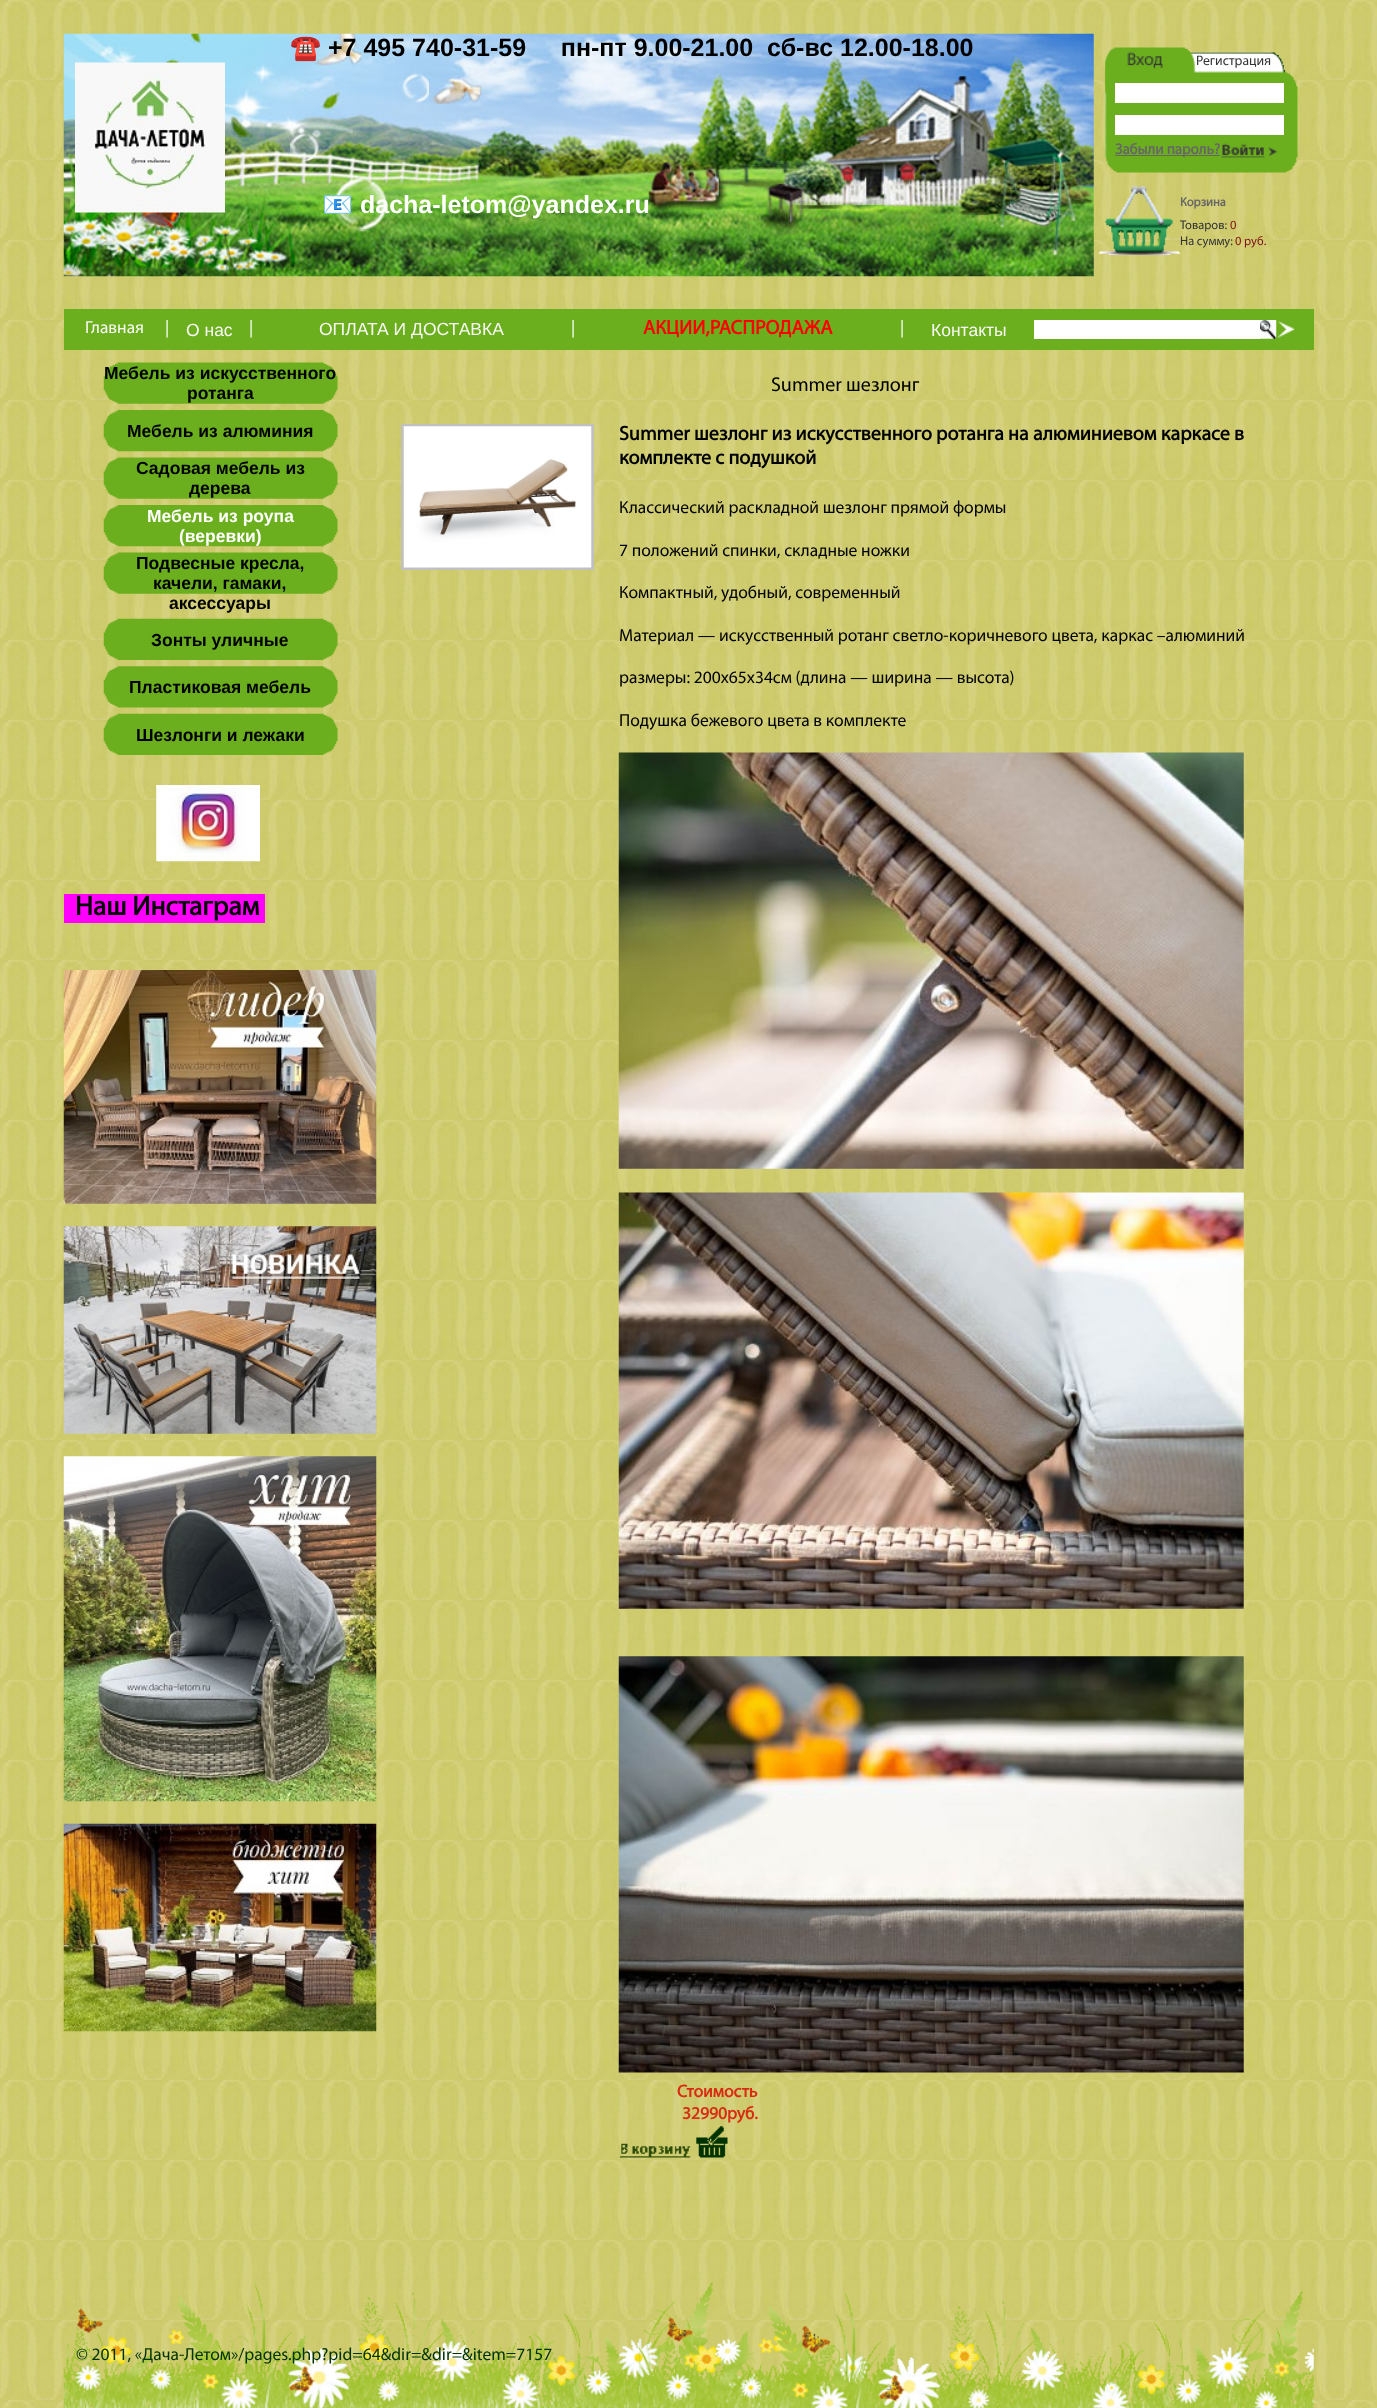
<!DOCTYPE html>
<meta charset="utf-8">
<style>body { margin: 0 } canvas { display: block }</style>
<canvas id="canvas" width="1377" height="2408"></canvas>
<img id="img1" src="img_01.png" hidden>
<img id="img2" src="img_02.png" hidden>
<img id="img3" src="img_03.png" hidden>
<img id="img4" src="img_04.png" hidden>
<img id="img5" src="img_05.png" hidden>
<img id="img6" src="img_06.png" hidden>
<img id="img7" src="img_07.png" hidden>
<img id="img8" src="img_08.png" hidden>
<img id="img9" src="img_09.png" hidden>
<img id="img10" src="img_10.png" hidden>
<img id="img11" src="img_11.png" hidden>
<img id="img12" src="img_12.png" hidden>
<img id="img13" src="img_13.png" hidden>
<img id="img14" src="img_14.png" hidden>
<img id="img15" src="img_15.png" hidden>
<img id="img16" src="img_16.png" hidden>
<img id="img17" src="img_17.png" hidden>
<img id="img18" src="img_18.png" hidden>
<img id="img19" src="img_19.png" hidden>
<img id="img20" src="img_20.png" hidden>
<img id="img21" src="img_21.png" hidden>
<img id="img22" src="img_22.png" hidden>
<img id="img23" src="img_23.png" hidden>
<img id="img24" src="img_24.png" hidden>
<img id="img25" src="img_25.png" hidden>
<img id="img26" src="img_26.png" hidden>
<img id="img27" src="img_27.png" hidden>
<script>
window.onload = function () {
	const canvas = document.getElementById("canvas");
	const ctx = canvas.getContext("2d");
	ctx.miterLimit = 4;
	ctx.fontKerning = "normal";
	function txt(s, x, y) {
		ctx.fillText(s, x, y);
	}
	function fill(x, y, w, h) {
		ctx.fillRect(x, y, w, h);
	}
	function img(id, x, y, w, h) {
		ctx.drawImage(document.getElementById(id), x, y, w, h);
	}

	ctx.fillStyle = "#FFFFFF";
	fill(0, 0, 1377, 2408);
	img("img1", 0, 0, 1377, 2408);
	img("img2", 63, 2282, 1251, 126);
	img("img3", 63, 33, 1031, 244);
	img("img4", 75, 62, 150, 151);
	img("img5", 1104, 47, 194, 126);
	fill(1115, 83, 169, 20);
	fill(1115, 115, 169, 20);
	ctx.fillStyle = "#666666";
	fill(1115, 155, 105, 1);
	img("img6", 1221, 143, 57, 15);
	img("img7", 1098, 186, 82, 69);
	ctx.fillStyle = "#6BAF1E";
	fill(64, 309, 1250, 41);
	ctx.fillStyle = "#FFFFFF";
	fill(1034, 320, 226, 19);
	img("img8", 1260, 320, 17, 19);
	img("img9", 1277, 321, 18, 17);
	img("img10", 103, 362, 235, 42);
	img("img11", 103, 410, 235, 42);
	img("img12", 103, 457, 235, 42);
	img("img13", 103, 505, 235, 42);
	img("img14", 103, 552, 235, 42);
	img("img15", 103, 618, 235, 42);
	img("img16", 103, 666, 235, 42);
	img("img17", 103, 713, 235, 42);
	img("img18", 156, 785, 104, 77);
	ctx.fillStyle = "#FF00FF";
	fill(64, 894, 201, 29);
	img("img19", 63, 970, 314, 234);
	img("img20", 63, 1226, 314, 208);
	img("img21", 63, 1456, 314, 346);
	img("img22", 63, 1823, 314, 209);
	ctx.strokeStyle = "#C0C0C0";
	ctx.lineWidth = 3;
	ctx.strokeRect(402.5, 425.5, 190, 143);
	img("img23", 403, 426, 189, 142);
	img("img24", 618, 752, 626, 417);
	img("img25", 618, 1192, 626, 417);
	img("img26", 618, 1656, 626, 417);
	img("img27", 619, 2126, 109, 32);
	ctx.font = "bold 25px Noto Color Emoji";
	ctx.fillStyle = "#FF0000";
	txt("☎️", 290, 56);
	ctx.font = "bold 25px Liberation Sans";
	ctx.fillStyle = "#000000";
	txt("+7 495 740-31-59     пн-пт 9.00-21.00  сб-вс 12.00-18.00", 328, 56);
	ctx.font = "bold 25px Noto Color Emoji";
	ctx.fillStyle = "#FF0000";
	txt("📧", 322, 213);
	ctx.font = "bold 25px Liberation Sans";
	ctx.fillStyle = "#FFFFFF";
	txt("dacha-letom@yandex.ru", 360, 213);
	ctx.font = "13.75px Myriad";
	ctx.fillStyle = "#333333";
	txt("Регистрация", 1196, 65);
	ctx.font = "bold 15px Myriad";
	ctx.fillStyle = "#666666";
	txt("Забыли пароль?", 1115, 154);
	ctx.font = "bold 12.5px Myriad";
	txt("Корзина", 1180, 206);
	ctx.font = "12.5px Myriad";
	ctx.fillStyle = "#333333";
	txt("Товаров:", 1180, 229);
	ctx.fillStyle = "#7E1414";
	txt("0", 1230, 229);
	ctx.fillStyle = "#333333";
	txt("На сумму:", 1180, 245);
	ctx.fillStyle = "#7E1414";
	txt("0 руб.", 1235, 245);
	ctx.font = "17.5px Myriad";
	ctx.fillStyle = "#F8F9F5";
	txt("Главная", 85, 333);
	ctx.fillStyle = "#FFFFFF";
	txt("|", 165, 333);
	ctx.font = "17.5px Liberation Sans";
	ctx.fillStyle = "#F8F9F5";
	txt("О нас", 186, 336);
	ctx.font = "17.5px Myriad";
	ctx.fillStyle = "#FFFFFF";
	txt("|", 249, 333);
	ctx.font = "17.5px Liberation Sans";
	ctx.fillStyle = "#F8F9F5";
	txt("ОПЛАТА И ДОСТАВКА", 319, 335);
	ctx.font = "17.5px Myriad";
	ctx.fillStyle = "#FFFFFF";
	txt("|", 571, 333);
	ctx.font = "bold 20px Myriad";
	ctx.fillStyle = "#FF0000";
	txt("АКЦИИ,РАСПРОДАЖА", 643, 334);
	ctx.font = "17.5px Myriad";
	ctx.fillStyle = "#FFFFFF";
	txt("|", 900, 333);
	ctx.font = "17.5px Liberation Sans";
	ctx.fillStyle = "#F8F9F5";
	txt("Контакты", 931, 336);
	ctx.font = "bold 17.5px Liberation Sans";
	ctx.fillStyle = "#000000";
	txt("Мебель из искусственного", 104, 379);
	txt("ротанга", 187, 399);
	txt("Мебель из алюминия", 127, 437);
	txt("Садовая мебель из", 136, 474);
	txt("дерева", 189, 494);
	ctx.fillStyle = "#FFFFFF";
	txt("Мебель из роупа", 147, 522);
	txt("(веревки)", 179, 542);
	ctx.fillStyle = "#000000";
	txt("Подвесные кресла,", 136, 569);
	txt("качели, гамаки,", 153, 589);
	txt("аксессуары", 169, 609);
	txt("Зонты уличные", 151, 646);
	txt("Пластиковая мебель", 129, 693);
	txt("Шезлонги и лежаки", 136, 741);
	ctx.font = "bold 27.5px Myriad";
	txt("Наш Инстаграм", 75, 915);
	ctx.font = "20px Myriad";
	txt("Summer шезлонг", 771, 391);
	ctx.font = "bold 20px Myriad";
	txt("Summer шезлонг из искусственного ротанга на алюминиевом каркасе в", 619, 440);
	txt("комплекте с подушкой", 619, 464);
	ctx.font = "17.5px Myriad";
	txt("Классический раскладной шезлонг прямой формы", 619, 513);
	txt("7 положений спинки, складные ножки", 619, 556);
	txt("Компактный, удобный, современный", 619, 598);
	txt("Материал — искусственный ротанг светло-коричневого цвета, каркас –алюминий", 619, 641);
	txt("размеры: 200x65x34см (длина — ширина — высота)", 619, 683);
	txt("Подушка бежевого цвета в комплекте", 619, 726);
	ctx.font = "bold 17.5px Myriad";
	ctx.fillStyle = "#D82B13";
	txt("Стоимость", 677, 2097);
	txt("32990руб.", 682, 2119);
	ctx.font = "17.5px Myriad";
	ctx.fillStyle = "#003300";
	txt("© 2011, «Дача-Летом»/pages.php?pid=64&dir=&dir=&item=7157", 76, 2360);
};
</script>
